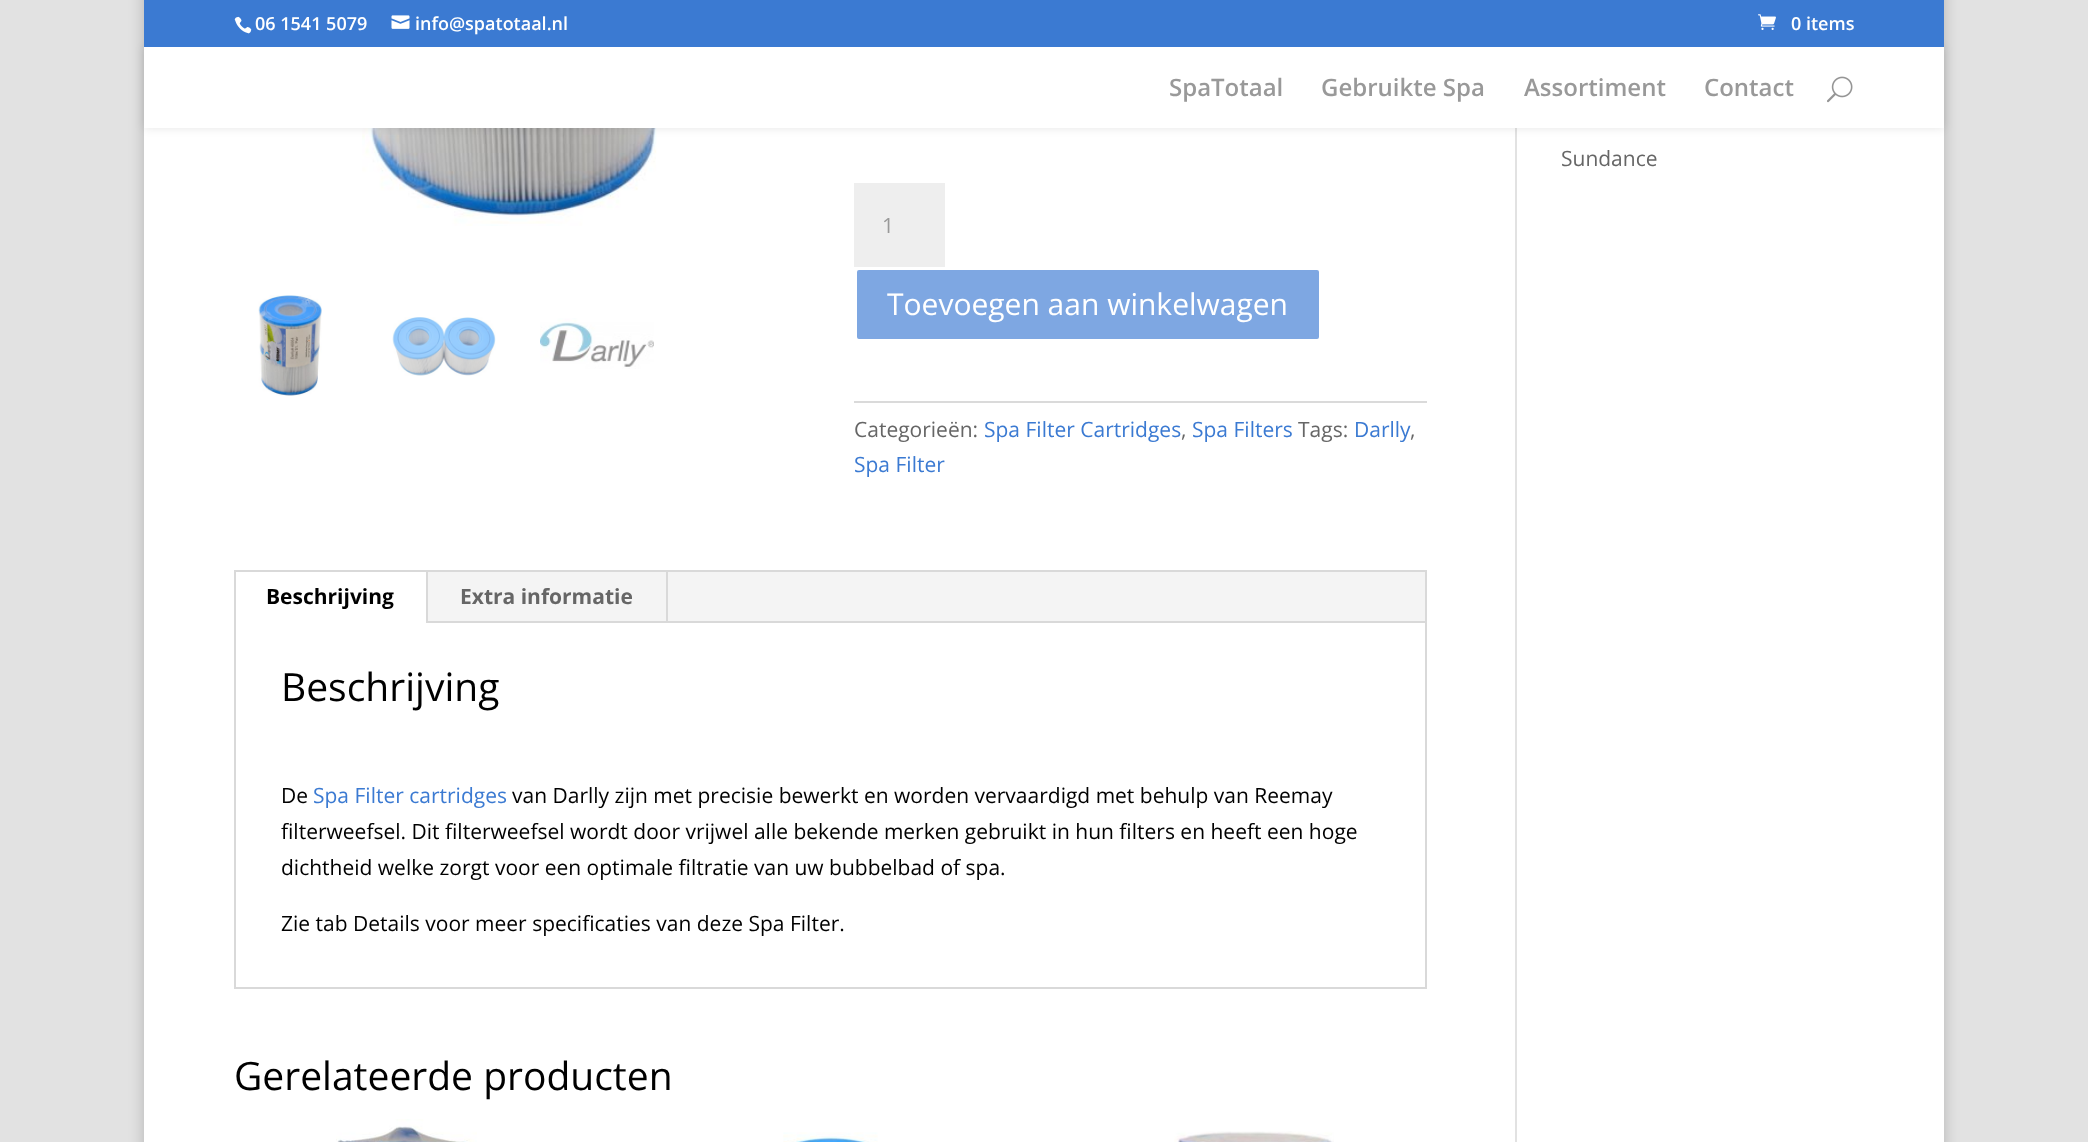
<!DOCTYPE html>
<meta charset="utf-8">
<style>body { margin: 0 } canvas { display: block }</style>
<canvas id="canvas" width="2088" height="1142"></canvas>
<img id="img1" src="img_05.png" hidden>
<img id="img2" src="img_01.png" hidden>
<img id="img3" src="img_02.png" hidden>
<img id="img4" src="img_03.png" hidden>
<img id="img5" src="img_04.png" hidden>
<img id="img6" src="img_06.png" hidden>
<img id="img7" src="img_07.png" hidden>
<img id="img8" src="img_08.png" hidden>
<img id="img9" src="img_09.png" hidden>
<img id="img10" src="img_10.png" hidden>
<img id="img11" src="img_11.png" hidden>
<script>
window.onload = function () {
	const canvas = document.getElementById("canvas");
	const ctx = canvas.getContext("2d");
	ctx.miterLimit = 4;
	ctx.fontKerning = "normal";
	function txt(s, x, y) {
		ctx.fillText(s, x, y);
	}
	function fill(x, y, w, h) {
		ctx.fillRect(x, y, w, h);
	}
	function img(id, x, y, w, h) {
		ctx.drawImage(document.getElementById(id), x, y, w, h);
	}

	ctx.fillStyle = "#E2E2E2";
	fill(0, 0, 2088, 1142);
	ctx.fillStyle = "rgba(0, 0, 0, 0.2)";
	ctx.filter = "blur(7.5px)";
	ctx.beginPath();
	ctx.rect(144, -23, 1800, 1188);
	ctx.fill();
	ctx.filter = "none";
	ctx.fillStyle = "#FFFFFF";
	fill(144, 128, 1800, 1014);
	ctx.fillStyle = "#E2E2E2";
	fill(1515, 128, 2, 1014);
	img("img1", 362, 128, 300, 98);
	ctx.fillStyle = "rgba(0, 0, 0, 0.1)";
	ctx.filter = "blur(5px)";
	ctx.beginPath();
	ctx.rect(144, 47, 1800, 81);
	ctx.fill();
	ctx.filter = "none";
	ctx.fillStyle = "#3B7AD2";
	fill(144, 0, 1800, 47);
	img("img2", 234, 16, 18, 18);
	img("img3", 391, 15, 19, 14);
	img("img4", 1758, 14, 18, 16);
	ctx.fillStyle = "#FFFFFF";
	fill(144, 47, 1800, 81);
	img("img5", 1827, 76, 26, 27);
	img("img6", 258, 295, 64, 101);
	img("img7", 392, 317, 104, 59);
	img("img8", 540, 318, 114, 51);
	ctx.fillStyle = "#EEEEEE";
	fill(854, 183, 91, 84);
	ctx.fillStyle = "#7EA7E2";
	ctx.beginPath();
	ctx.roundRect(855.5, 268.5, 465, 72, 3.5);
	ctx.fill();
	ctx.strokeStyle = "#FFFFFF";
	ctx.lineWidth = 3;
	ctx.stroke();
	ctx.fillStyle = "#DADADA";
	fill(854, 401, 573, 2);
	ctx.strokeStyle = "#D9D9D9";
	ctx.lineWidth = 2;
	ctx.strokeRect(235, 571, 1191, 417);
	ctx.fillStyle = "#F4F4F4";
	fill(428, 572, 997, 49);
	ctx.fillStyle = "#D9D9D9";
	fill(426, 572, 2, 51);
	fill(666, 572, 2, 51);
	fill(428, 621, 997, 2);
	img("img9", 336, 1119, 141, 23);
	img("img10", 783, 1132, 95, 10);
	img("img11", 1174, 1131, 160, 11);
	ctx.font = "600 18px Open Sans";
	ctx.fillStyle = "#FFFFFF";
	txt("06 1541 5079", 255, 30);
	txt("info@spatotaal.nl", 415, 30);
	txt("0 items", 1791, 30);
	ctx.font = "600 24px Open Sans";
	ctx.fillStyle = "#999999";
	txt("SpaTotaal", 1169, 96);
	txt("Gebruikte Spa", 1321, 96);
	txt("Assortiment", 1524, 96);
	txt("Contact", 1704, 96);
	ctx.font = "21px Open Sans";
	ctx.fillStyle = "#666666";
	txt("Sundance", 1561, 166);
	ctx.fillStyle = "#999999";
	txt("1", 882, 233);
	ctx.font = "30px Open Sans";
	ctx.fillStyle = "#FFFFFF";
	txt("Toevoegen aan winkelwagen", 887, 315);
	ctx.font = "21px Open Sans";
	ctx.fillStyle = "#666666";
	txt("Categorieën:", 854, 437);
	ctx.fillStyle = "#3B7AD2";
	txt("Spa Filter Cartridges", 984, 437);
	ctx.fillStyle = "#666666";
	txt(",", 1181, 437);
	ctx.fillStyle = "#3B7AD2";
	txt("Spa Filters", 1192, 437);
	ctx.fillStyle = "#666666";
	txt("Tags:", 1298, 437);
	ctx.fillStyle = "#3B7AD2";
	txt("Darlly", 1354, 437);
	ctx.fillStyle = "#666666";
	txt(",", 1410, 437);
	ctx.fillStyle = "#3B7AD2";
	txt("Spa Filter", 854, 472);
	ctx.font = "bold 21px Open Sans";
	ctx.fillStyle = "#000000";
	txt("Beschrijving", 266, 604);
	ctx.fillStyle = "#666666";
	txt("Extra informatie", 460, 604);
	ctx.font = "39px Open Sans";
	ctx.fillStyle = "#000000";
	txt("Beschrijving", 281, 701);
	ctx.font = "21px Open Sans";
	txt("De", 281, 803);
	ctx.fillStyle = "#3B7AD2";
	txt("Spa Filter cartridges", 313, 803);
	ctx.fillStyle = "#000000";
	txt("van Darlly zijn met precisie bewerkt en worden vervaardigd met behulp van Reemay", 512, 803);
	txt("filterweefsel. Dit filterweefsel wordt door vrijwel alle bekende merken gebruikt in hun filters en heeft een hoge", 281, 839);
	txt("dichtheid welke zorgt voor een optimale filtratie van uw bubbelbad of spa.", 281, 875);
	txt("Zie tab Details voor meer specificaties van deze Spa Filter.", 281, 931);
	ctx.font = "39px Open Sans";
	txt("Gerelateerde producten", 234, 1090);
};
</script>
